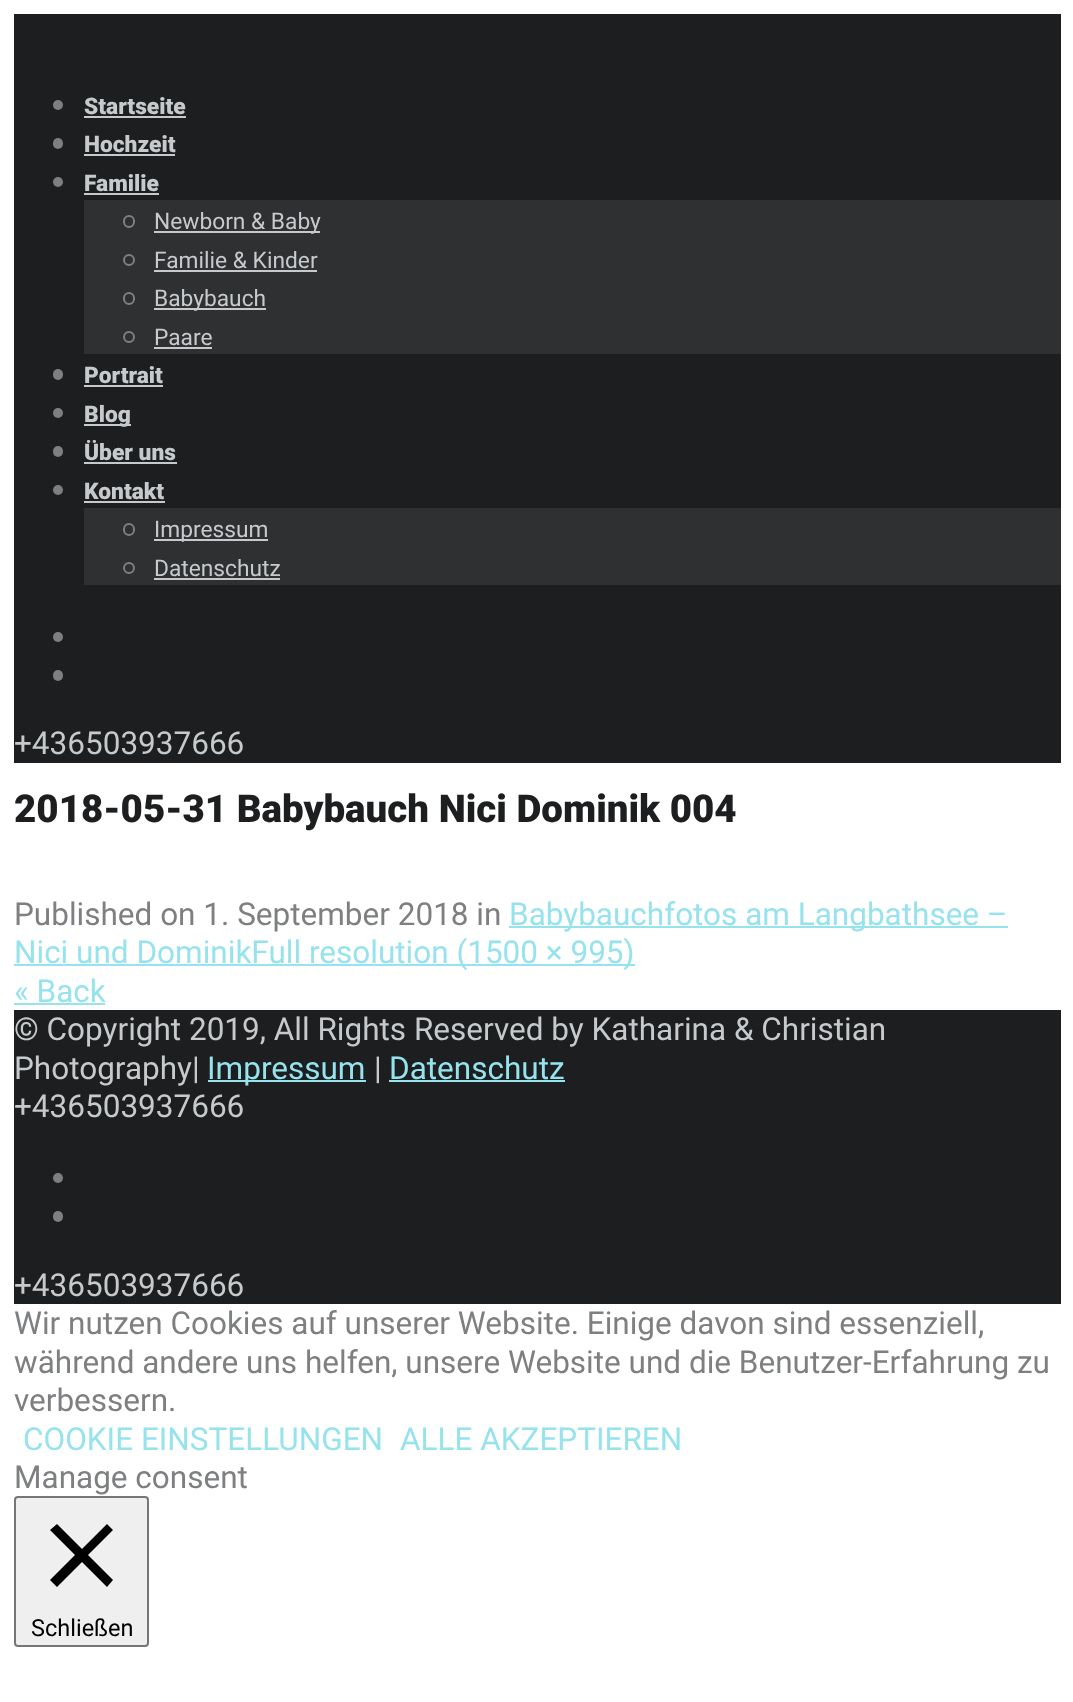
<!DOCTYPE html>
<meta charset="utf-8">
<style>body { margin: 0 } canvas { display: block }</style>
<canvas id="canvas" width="1073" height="1702"></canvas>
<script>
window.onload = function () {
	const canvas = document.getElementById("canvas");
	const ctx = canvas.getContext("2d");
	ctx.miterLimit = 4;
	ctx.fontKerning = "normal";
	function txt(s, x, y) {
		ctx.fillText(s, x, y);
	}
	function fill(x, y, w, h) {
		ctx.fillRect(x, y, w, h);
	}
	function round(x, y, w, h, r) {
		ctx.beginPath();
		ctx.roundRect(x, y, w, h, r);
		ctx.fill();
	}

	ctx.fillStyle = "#FFFFFF";
	fill(0, 0, 1073, 1702);
	ctx.fillStyle = "#1D1E1F";
	fill(14, 14, 1047, 749);
	ctx.fillStyle = "#7E7F81";
	ctx.beginPath();
	ctx.arc(58, 105, 5, 0, Math.PI * 2);
	ctx.fill();
	ctx.fillStyle = "#C7CACC";
	fill(84, 116, 102, 2);
	ctx.fillStyle = "#7E7F81";
	round(53, 138, 10, 11, 5);
	ctx.fillStyle = "#C7CACC";
	fill(84, 154, 91, 2);
	ctx.fillStyle = "#7E7F81";
	ctx.beginPath();
	ctx.arc(58, 182, 5, 0, Math.PI * 2);
	ctx.fill();
	ctx.fillStyle = "#C7CACC";
	fill(84, 193, 75, 2);
	ctx.fillStyle = "#2E3032";
	fill(84, 200, 977, 154);
	ctx.beginPath();
	ctx.roundRect(124, 216, 10, 11, 5);
	ctx.strokeStyle = "#7E7F81";
	ctx.lineWidth = 2;
	ctx.stroke();
	ctx.fillStyle = "#C8C9CC";
	fill(154, 231, 166, 2);
	ctx.beginPath();
	ctx.arc(129, 260, 5, 0, Math.PI * 2);
	ctx.stroke();
	fill(154, 270, 163, 2);
	ctx.beginPath();
	ctx.roundRect(124, 293, 10, 11, 5);
	ctx.stroke();
	fill(154, 308, 112, 2);
	ctx.beginPath();
	ctx.arc(129, 337, 5, 0, Math.PI * 2);
	ctx.stroke();
	fill(154, 347, 58, 2);
	ctx.fillStyle = "#7E7F81";
	round(53, 369, 10, 11, 5);
	ctx.fillStyle = "#C7CACC";
	fill(84, 385, 79, 2);
	ctx.fillStyle = "#7E7F81";
	ctx.beginPath();
	ctx.arc(58, 413, 5, 0, Math.PI * 2);
	ctx.fill();
	ctx.fillStyle = "#C7CACC";
	fill(84, 424, 47, 2);
	ctx.fillStyle = "#7E7F81";
	round(53, 446, 10, 11, 5);
	ctx.fillStyle = "#C7CACC";
	fill(84, 462, 93, 2);
	ctx.fillStyle = "#7E7F81";
	ctx.beginPath();
	ctx.arc(58, 490, 5, 0, Math.PI * 2);
	ctx.fill();
	ctx.fillStyle = "#C7CACC";
	fill(84, 501, 81, 2);
	ctx.fillStyle = "#2E3032";
	fill(84, 508, 977, 77);
	ctx.beginPath();
	ctx.roundRect(124, 524, 10, 11, 5);
	ctx.stroke();
	ctx.fillStyle = "#C8C9CC";
	fill(154, 539, 114, 2);
	ctx.beginPath();
	ctx.arc(129, 568, 5, 0, Math.PI * 2);
	ctx.stroke();
	fill(154, 578, 126, 2);
	ctx.fillStyle = "#7E7F81";
	ctx.beginPath();
	ctx.arc(58, 637, 5, 0, Math.PI * 2);
	ctx.fill();
	round(53, 670, 10, 11, 5);
	ctx.fillStyle = "#96E3ED";
	fill(509, 926, 499, 2);
	fill(14, 964, 621, 2);
	fill(14, 1003, 91, 2);
	ctx.fillStyle = "#1D1E1F";
	fill(14, 1010, 1047, 294);
	ctx.fillStyle = "#96E3ED";
	fill(208, 1080, 158, 2);
	fill(389, 1080, 176, 2);
	ctx.fillStyle = "#7E7F81";
	ctx.beginPath();
	ctx.arc(58, 1178, 5, 0, Math.PI * 2);
	ctx.fill();
	round(53, 1211, 10, 11, 5);
	ctx.fillStyle = "#EFEFEF";
	ctx.beginPath();
	ctx.roundRect(15, 1497, 133, 149, 3);
	ctx.fill();
	ctx.strokeStyle = "#767676";
	ctx.stroke();
	ctx.fillStyle = "#000000";
	ctx.beginPath();
	ctx.moveTo(113, 1530);
	ctx.lineTo(107, 1524);
	ctx.lineTo(82, 1549);
	ctx.lineTo(57, 1524);
	ctx.lineTo(50, 1530);
	ctx.lineTo(75, 1555);
	ctx.lineTo(50, 1580);
	ctx.lineTo(57, 1587);
	ctx.lineTo(82, 1562);
	ctx.lineTo(107, 1587);
	ctx.lineTo(113, 1580);
	ctx.lineTo(88, 1555);
	ctx.closePath();
	ctx.fill();
	ctx.font = "900 22.75px Roboto";
	ctx.fillStyle = "#C7CACC";
	txt("Startseite", 84, 114);
	txt("Hochzeit", 84, 152);
	txt("Familie", 84, 191);
	ctx.font = "22.75px Roboto";
	txt("Newborn & Baby", 154, 229);
	txt("Familie & Kinder", 154, 268);
	txt("Babybauch", 154, 306);
	txt("Paare", 154, 345);
	ctx.font = "900 22.75px Roboto";
	txt("Portrait", 84, 383);
	txt("Blog", 84, 422);
	txt("Über uns", 84, 460);
	txt("Kontakt", 84, 499);
	ctx.font = "22.75px Roboto";
	txt("Impressum", 154, 537);
	txt("Datenschutz", 154, 576);
	ctx.font = "31.5px Roboto";
	txt("+436503937666", 14, 754);
	ctx.font = "900 38.5px Roboto";
	ctx.fillStyle = "#1D1E1F";
	txt("2018-05-31 Babybauch Nici Dominik 004", 14, 822);
	ctx.font = "31.5px Roboto";
	ctx.fillStyle = "#7E7F81";
	txt("Published on 1. September 2018 in", 14, 925);
	ctx.fillStyle = "#96E3ED";
	txt("Babybauchfotos am Langbathsee –", 509, 925);
	txt("Nici und DominikFull resolution (1500 × 995)", 14, 963);
	txt("« Back", 14, 1002);
	ctx.fillStyle = "#C7CACC";
	txt("© Copyright 2019, All Rights Reserved by Katharina & Christian", 14, 1040);
	txt("Photography|", 14, 1079);
	ctx.fillStyle = "#96E3ED";
	txt("Impressum", 207, 1079);
	ctx.fillStyle = "#C7CACC";
	txt("|", 374, 1079);
	ctx.fillStyle = "#96E3ED";
	txt("Datenschutz", 389, 1079);
	ctx.fillStyle = "#C7CACC";
	txt("+436503937666", 14, 1117);
	txt("+436503937666", 14, 1296);
	ctx.fillStyle = "#7E7F81";
	txt("Wir nutzen Cookies auf unserer Website. Einige davon sind essenziell,", 14, 1334);
	txt("während andere uns helfen, unsere Website und die Benutzer-Erfahrung zu", 14, 1373);
	txt("verbessern.", 14, 1411);
	ctx.fillStyle = "#96E3ED";
	txt("COOKIE EINSTELLUNGEN", 23, 1450);
	txt("ALLE AKZEPTIEREN", 400, 1450);
	ctx.fillStyle = "#7E7F81";
	txt("Manage consent", 14, 1488);
	ctx.font = "23.5px Roboto";
	ctx.fillStyle = "#000000";
	txt("Schließen", 31, 1636);
};
</script>
